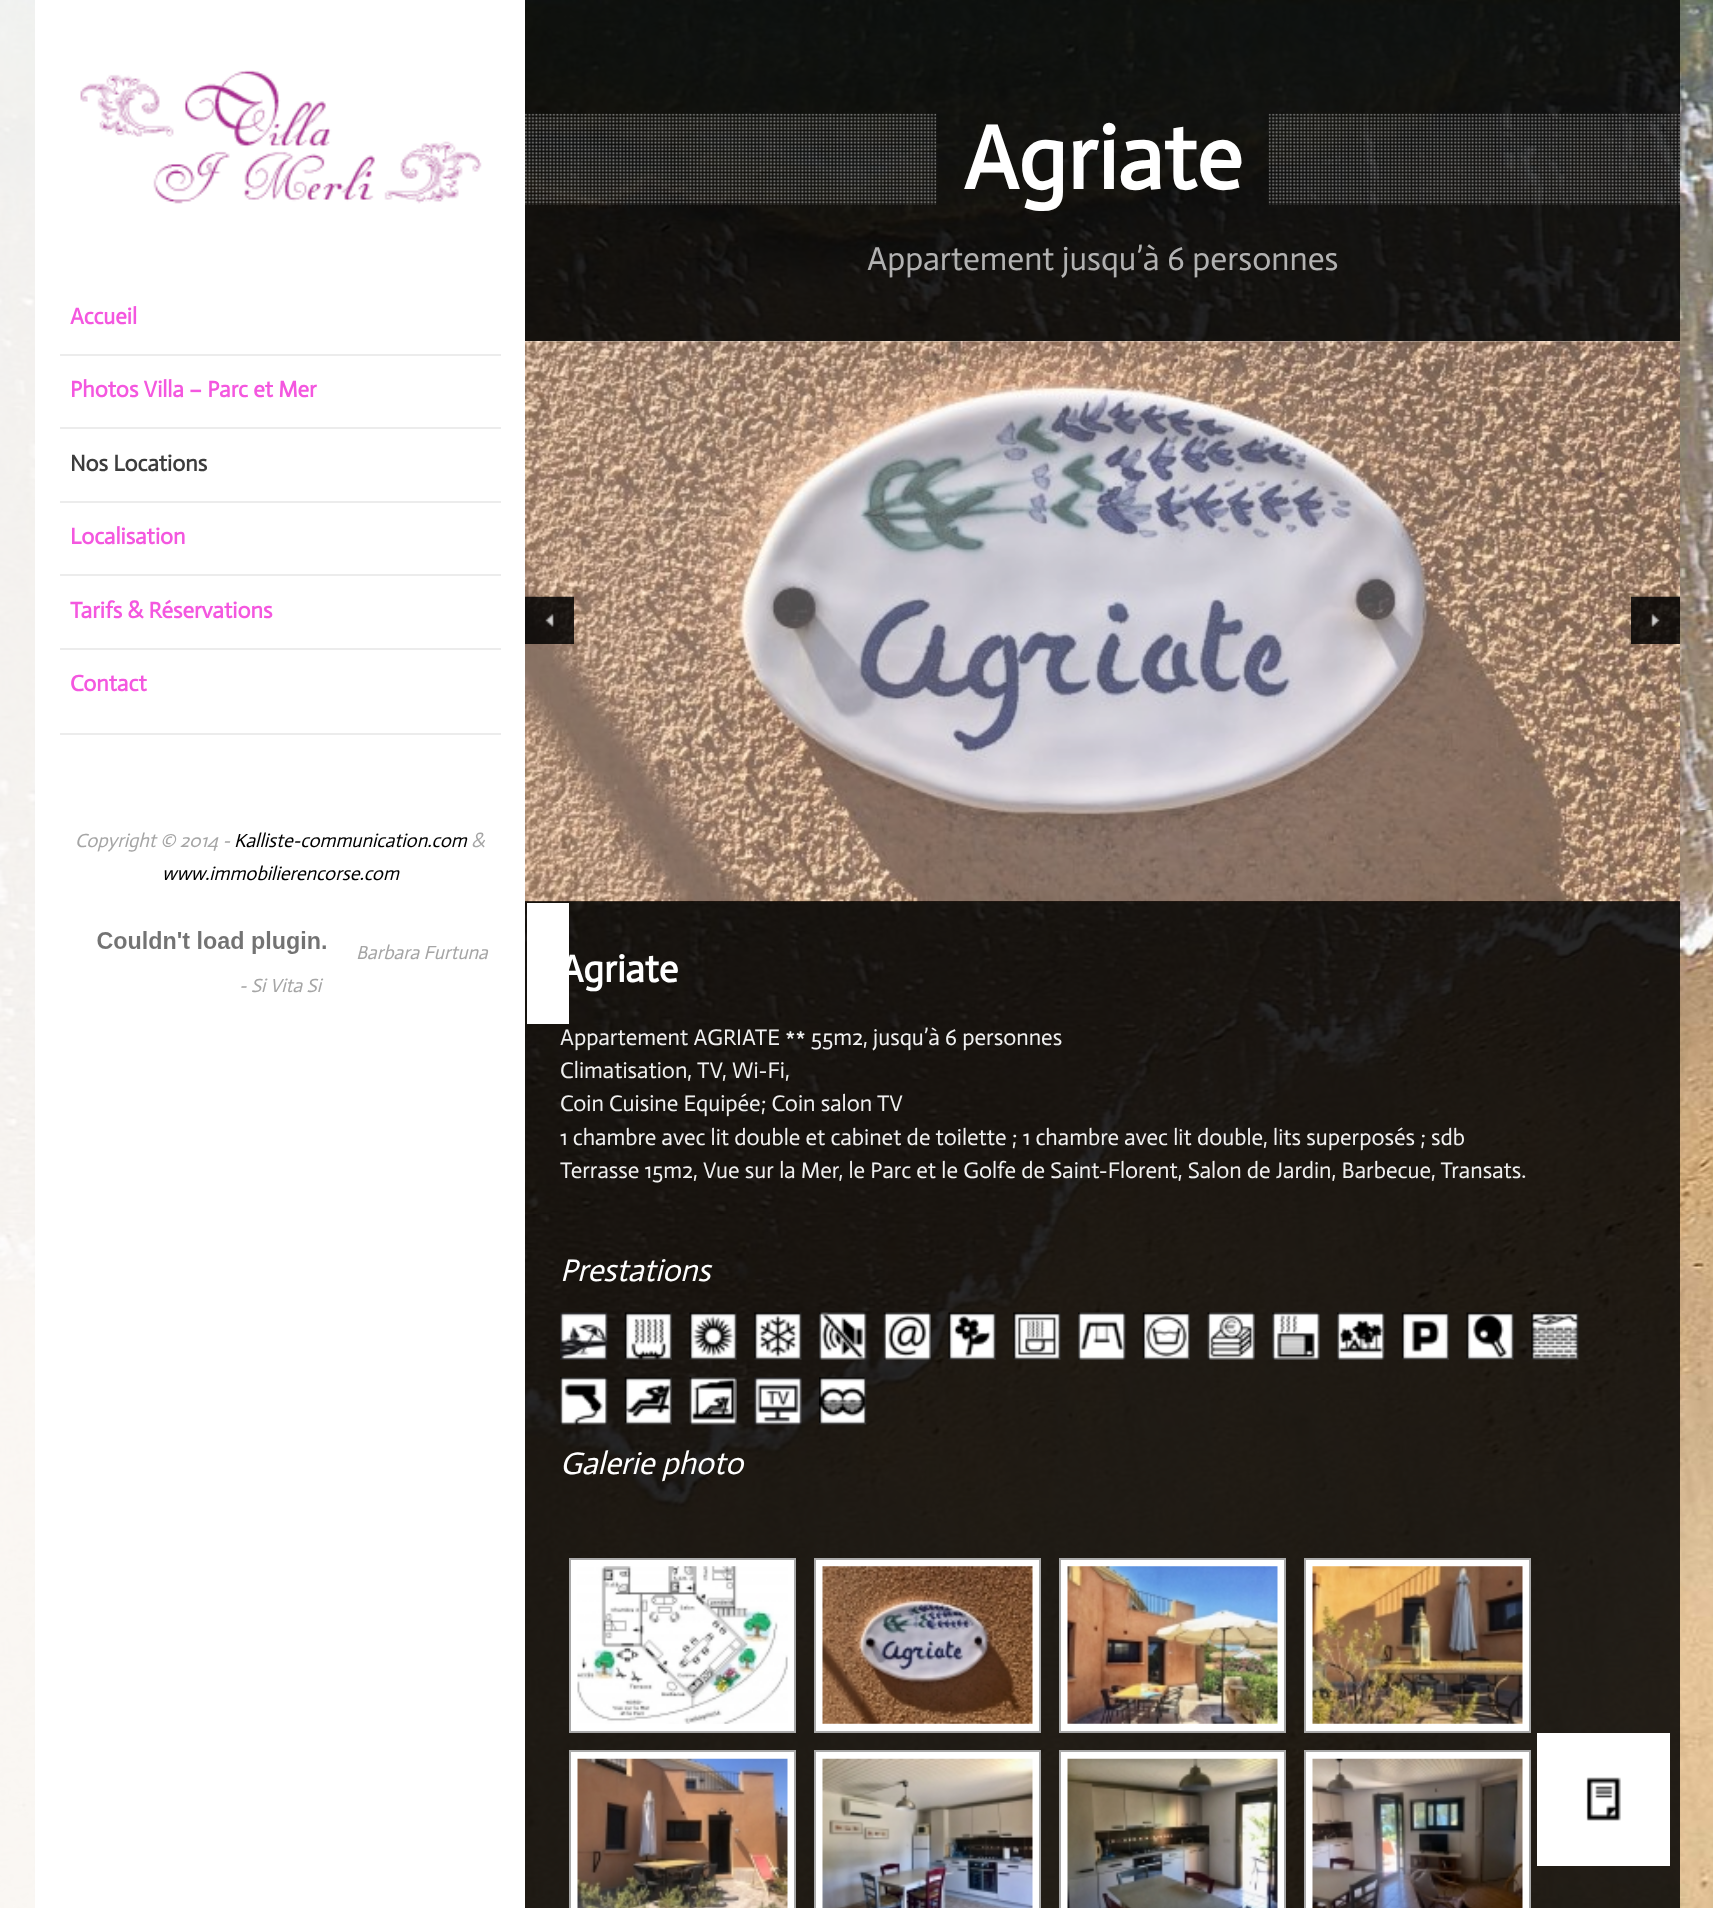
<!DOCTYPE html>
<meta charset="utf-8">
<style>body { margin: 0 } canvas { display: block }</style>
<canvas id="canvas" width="1713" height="1908"></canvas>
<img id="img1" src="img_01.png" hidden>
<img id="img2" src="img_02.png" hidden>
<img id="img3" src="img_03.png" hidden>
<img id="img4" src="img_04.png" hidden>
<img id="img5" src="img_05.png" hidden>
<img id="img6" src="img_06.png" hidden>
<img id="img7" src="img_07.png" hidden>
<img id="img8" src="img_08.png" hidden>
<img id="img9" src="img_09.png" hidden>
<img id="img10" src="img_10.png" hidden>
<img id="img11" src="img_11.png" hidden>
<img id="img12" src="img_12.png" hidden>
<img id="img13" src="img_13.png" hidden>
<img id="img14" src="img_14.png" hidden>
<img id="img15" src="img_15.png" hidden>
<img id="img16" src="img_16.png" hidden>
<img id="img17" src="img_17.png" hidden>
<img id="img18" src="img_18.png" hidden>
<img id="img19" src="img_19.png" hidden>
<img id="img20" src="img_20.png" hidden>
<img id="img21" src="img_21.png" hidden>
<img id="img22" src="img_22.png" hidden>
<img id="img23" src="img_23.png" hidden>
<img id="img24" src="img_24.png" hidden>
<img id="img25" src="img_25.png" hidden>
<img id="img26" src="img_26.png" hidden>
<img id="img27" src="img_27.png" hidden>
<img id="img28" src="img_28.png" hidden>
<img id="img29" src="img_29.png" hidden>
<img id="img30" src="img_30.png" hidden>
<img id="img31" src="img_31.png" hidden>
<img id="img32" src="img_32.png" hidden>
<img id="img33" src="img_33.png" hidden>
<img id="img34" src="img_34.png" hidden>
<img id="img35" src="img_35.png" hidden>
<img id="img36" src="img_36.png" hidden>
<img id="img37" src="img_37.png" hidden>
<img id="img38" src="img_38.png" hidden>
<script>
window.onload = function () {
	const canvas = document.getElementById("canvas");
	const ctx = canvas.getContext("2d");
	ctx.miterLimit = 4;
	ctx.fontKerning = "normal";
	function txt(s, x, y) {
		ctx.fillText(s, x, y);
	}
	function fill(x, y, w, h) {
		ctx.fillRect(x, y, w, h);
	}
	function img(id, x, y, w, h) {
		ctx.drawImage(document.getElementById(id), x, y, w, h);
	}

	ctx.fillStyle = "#FFFFFF";
	fill(0, 0, 1713, 1908);
	img("img1", 0, 0, 1713, 1908);
	ctx.fillStyle = "rgba(255, 255, 255, 0.9)";
	fill(0, 0, 35, 1908);
	ctx.fillStyle = "#FFFFFF";
	fill(35, 0, 490, 1908);
	img("img2", 80, 70, 402, 134);
	ctx.fillStyle = "#ECECEC";
	fill(60, 354, 441, 2);
	fill(60, 427, 441, 2);
	fill(60, 501, 441, 2);
	fill(60, 574, 441, 2);
	fill(60, 648, 441, 2);
	fill(60, 733, 441, 2);
	img("img3", 97, 931, 229, 23);
	ctx.fillStyle = "rgba(0, 0, 0, 0.85)";
	fill(525, 0, 1155, 1908);
	ctx.fillStyle = "#FFFFFF";
	fill(527, 903, 42, 121);
	img("img4", 525, 113, 412, 92);
	img("img5", 1268, 113, 412, 92);
	fill(525, 341, 1155, 560);
	img("img6", 525, 341, 1155, 561);
	img("img7", 525, 596, 49, 48);
	img("img8", 1631, 596, 49, 48);
	img("img9", 560, 1312, 48, 48);
	img("img10", 624, 1312, 48, 48);
	img("img11", 689, 1312, 48, 48);
	img("img12", 754, 1312, 48, 48);
	img("img13", 819, 1312, 48, 48);
	img("img14", 883, 1312, 48, 48);
	img("img15", 948, 1312, 48, 48);
	img("img16", 1013, 1312, 48, 48);
	img("img17", 1078, 1312, 48, 48);
	img("img18", 1142, 1312, 48, 48);
	img("img19", 1207, 1312, 48, 48);
	img("img20", 1272, 1312, 48, 48);
	img("img21", 1337, 1312, 48, 48);
	img("img22", 1401, 1312, 48, 48);
	img("img23", 1466, 1312, 48, 48);
	img("img24", 1531, 1312, 48, 48);
	img("img25", 560, 1377, 48, 48);
	img("img26", 624, 1377, 48, 48);
	img("img27", 689, 1377, 48, 48);
	img("img28", 754, 1377, 48, 48);
	img("img29", 819, 1377, 48, 48);
	ctx.beginPath();
	ctx.rect(570, 1559, 225, 173);
	ctx.fill();
	ctx.strokeStyle = "#A9A9A9";
	ctx.lineWidth = 2;
	ctx.stroke();
	img("img30", 577, 1566, 211, 158);
	ctx.beginPath();
	ctx.rect(815, 1559, 225, 173);
	ctx.fill();
	ctx.stroke();
	img("img31", 822, 1566, 211, 158);
	ctx.beginPath();
	ctx.rect(1060, 1559, 225, 173);
	ctx.fill();
	ctx.stroke();
	img("img32", 1067, 1566, 211, 158);
	ctx.beginPath();
	ctx.rect(1305, 1559, 225, 173);
	ctx.fill();
	ctx.stroke();
	img("img33", 1312, 1566, 211, 158);
	ctx.beginPath();
	ctx.rect(570, 1751, 225, 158);
	ctx.fill();
	ctx.stroke();
	img("img34", 577, 1758, 211, 150);
	ctx.beginPath();
	ctx.rect(815, 1751, 225, 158);
	ctx.fill();
	ctx.stroke();
	img("img35", 822, 1758, 211, 150);
	ctx.beginPath();
	ctx.rect(1060, 1751, 225, 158);
	ctx.fill();
	ctx.stroke();
	img("img36", 1067, 1758, 211, 150);
	ctx.beginPath();
	ctx.rect(1305, 1751, 225, 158);
	ctx.fill();
	ctx.stroke();
	img("img37", 1312, 1758, 211, 150);
	fill(1537, 1733, 133, 133);
	img("img38", 1586, 1777, 35, 44);
	ctx.font = "bold 22.75px Actor";
	ctx.fillStyle = "#F457DF";
	txt("Accueil", 70, 324);
	txt("Photos Villa – Parc et Mer", 70, 397);
	ctx.fillStyle = "#3D3D3D";
	txt("Nos Locations", 70, 471);
	ctx.fillStyle = "#F457DF";
	txt("Localisation", 70, 544);
	txt("Tarifs & Réservations", 70, 618);
	txt("Contact", 70, 691);
	ctx.font = "italic 19.25px Actor";
	ctx.fillStyle = "#A5A5A5";
	txt("Copyright © 2014 -", 75, 847);
	ctx.fillStyle = "#000000";
	txt("Kalliste-communication.com", 234, 847);
	ctx.fillStyle = "#A5A5A5";
	txt("&", 471, 847);
	ctx.fillStyle = "#000000";
	txt("www.immobilierencorse.com", 162, 880);
	ctx.fillStyle = "#A5A5A5";
	txt("Barbara Furtuna", 356, 959);
	txt("- Si Vita Si", 239, 992);
	ctx.font = "bold 91px Actor";
	ctx.fillStyle = "#FFFFFF";
	txt("Agriate", 963, 189);
	ctx.font = "33.25px Actor";
	ctx.fillStyle = "#B2B2B2";
	txt("Appartement jusqu’à 6 personnes", 867, 270);
	ctx.font = "bold 38.5px Actor";
	ctx.fillStyle = "#FFFFFF";
	txt("Agriate", 560, 982);
	ctx.font = "22.75px Actor";
	ctx.fillStyle = "#F0F0F0";
	txt("Appartement AGRIATE ** 55m2, jusqu’à 6 personnes", 560, 1045);
	txt("Climatisation, TV, Wi-Fi,", 560, 1078);
	txt("Coin Cuisine Equipée; Coin salon TV", 560, 1111);
	txt("1 chambre avec lit double et cabinet de toilette ; 1 chambre avec lit double, lits superposés ; sdb", 560, 1145);
	txt("Terrasse 15m2, Vue sur la Mer, le Parc et le Golfe de Saint-Florent, Salon de Jardin, Barbecue, Transats.", 560, 1178);
	ctx.font = "italic 31.5px Actor";
	ctx.fillStyle = "#FFFFFF";
	txt("Prestations", 560, 1281);
	txt("Galerie photo", 560, 1474);
};
</script>
